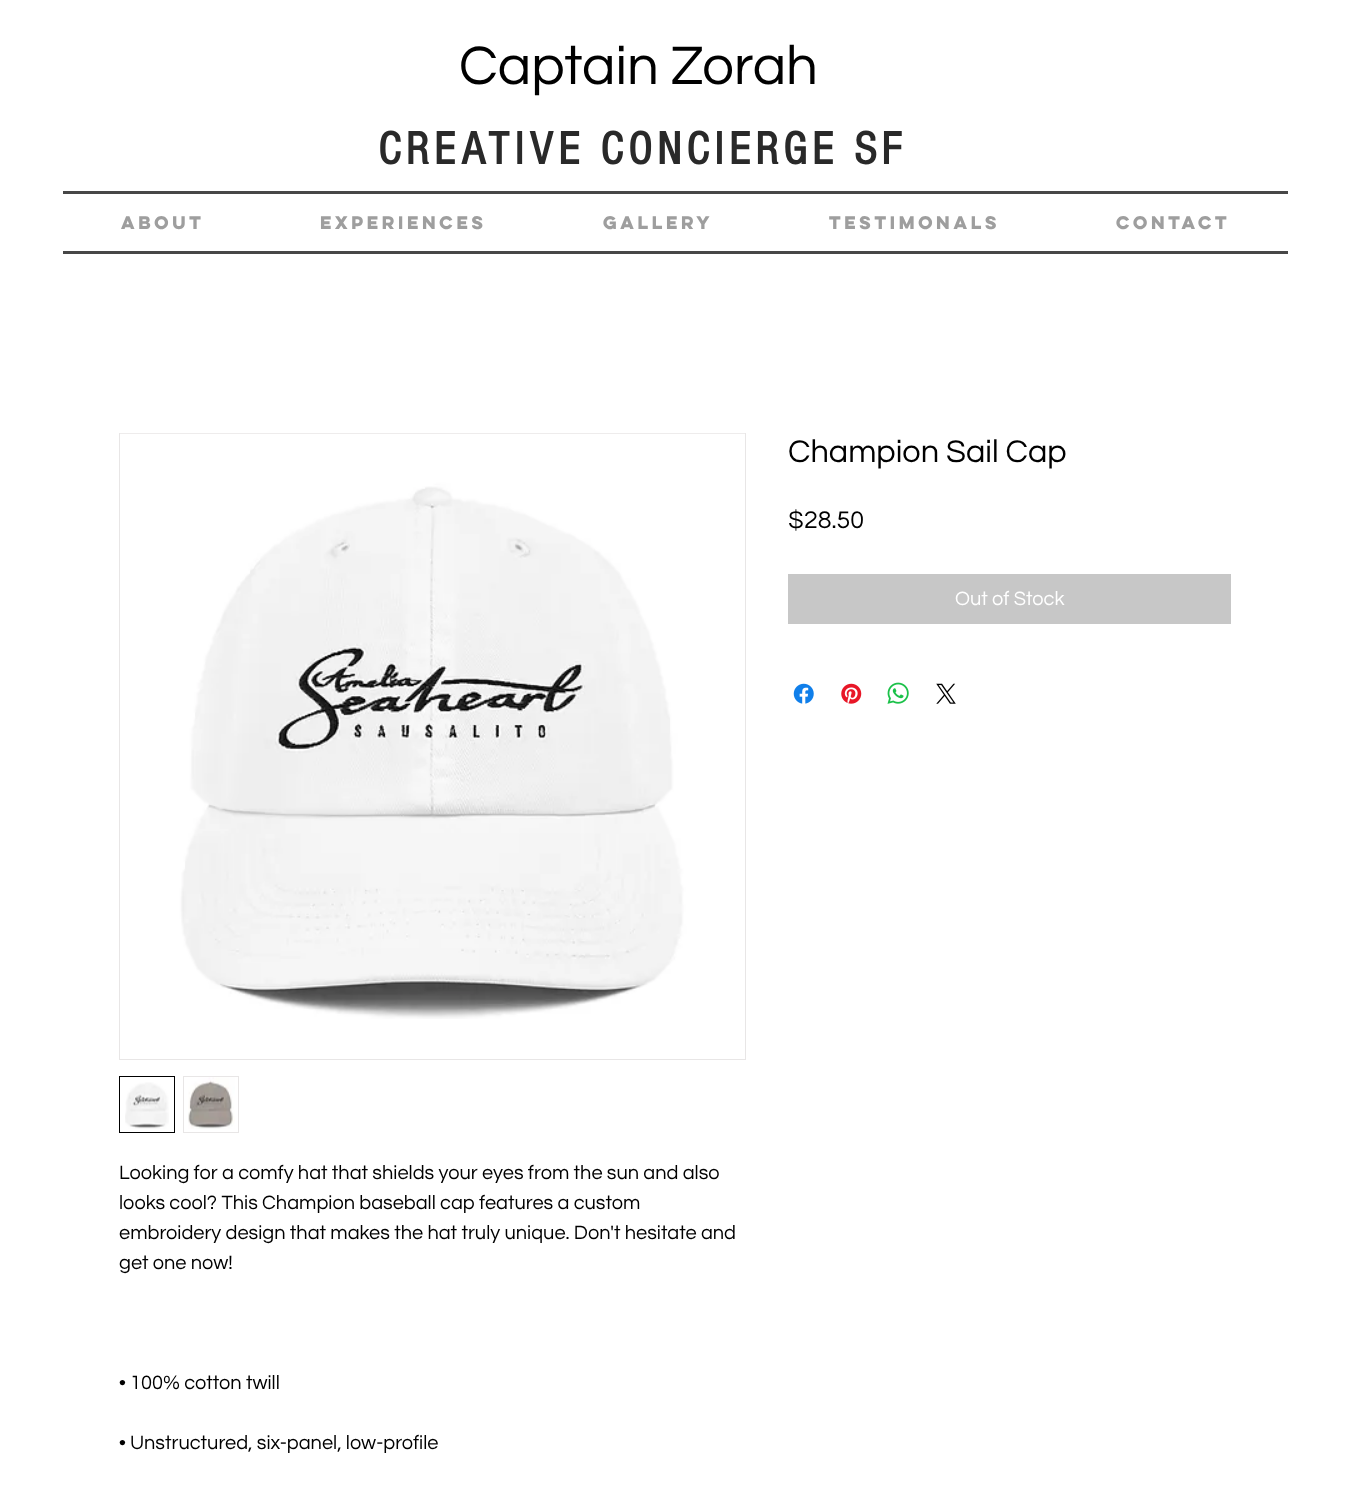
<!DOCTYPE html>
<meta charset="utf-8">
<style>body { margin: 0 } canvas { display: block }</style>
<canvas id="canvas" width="1349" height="1488"></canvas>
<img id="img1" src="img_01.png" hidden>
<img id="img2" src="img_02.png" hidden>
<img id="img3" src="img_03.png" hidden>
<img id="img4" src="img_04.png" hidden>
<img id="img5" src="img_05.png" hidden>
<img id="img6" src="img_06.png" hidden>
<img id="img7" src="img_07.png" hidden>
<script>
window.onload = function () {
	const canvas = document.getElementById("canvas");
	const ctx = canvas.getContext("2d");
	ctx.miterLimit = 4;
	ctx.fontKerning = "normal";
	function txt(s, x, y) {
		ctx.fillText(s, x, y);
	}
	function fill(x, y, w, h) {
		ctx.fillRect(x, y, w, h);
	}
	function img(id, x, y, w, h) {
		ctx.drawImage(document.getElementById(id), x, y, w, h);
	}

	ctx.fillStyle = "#FFFFFF";
	fill(0, 0, 1349, 1488);
	ctx.fillStyle = "#474747";
	fill(63, 191, 1225, 3);
	fill(63, 251, 1225, 3);
	ctx.fillStyle = "#C7C7C7";
	fill(788, 574, 443, 50);
	img("img1", 793, 683, 21, 21);
	img("img2", 841, 683, 21, 21);
	img("img3", 887, 682, 22, 22);
	img("img4", 936, 683, 20, 21);
	ctx.strokeStyle = "#E8E6E6";
	ctx.strokeRect(119.5, 433.5, 626, 626);
	img("img5", 120, 433, 625, 586);
	ctx.strokeStyle = "#000000";
	ctx.strokeRect(119.5, 1076.5, 55, 56);
	img("img6", 125, 1082, 44, 47);
	ctx.strokeStyle = "#E8E6E6";
	ctx.strokeRect(183.5, 1076.5, 55, 56);
	img("img7", 188, 1077, 47, 52);
	ctx.font = "56.25px Questrial";
	ctx.fillStyle = "#000000";
	txt("Captain Zorah", 459, 84);
	ctx.letterSpacing = "4.75px";
	ctx.font = "bold 47.5px 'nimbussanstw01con'";
	ctx.fillStyle = "#292929";
	txt("CREATIVE CONCIERGE SF", 378, 164);
	ctx.letterSpacing = "0px";
	ctx.font = "bold 16.25px 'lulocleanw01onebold'";
	ctx.fillStyle = "#9E9E9E";
	txt("About", 121, 229);
	txt("Experiences", 320, 229);
	txt("Gallery", 603, 229);
	txt("Testimonals", 829, 229);
	txt("Contact", 1116, 229);
	ctx.font = "32.5px Questrial";
	ctx.fillStyle = "#000000";
	txt("Champion Sail Cap", 788, 462);
	ctx.font = "25px Questrial";
	txt("$28.50", 788, 528);
	ctx.font = "20px Questrial";
	ctx.fillStyle = "#FFFFFF";
	txt("Out of Stock", 955, 605);
	ctx.fillStyle = "#000000";
	txt("Looking for a comfy hat that shields your eyes from the sun and also", 119, 1179);
	txt("looks cool? This Champion baseball cap features a custom", 119, 1209);
	txt("embroidery design that makes the hat truly unique. Don't hesitate and", 119, 1239);
	txt("get one now!", 119, 1269);
	txt("• 100% cotton twill", 119, 1389);
	txt("• Unstructured, six-panel, low-profile", 119, 1449);
};
</script>
